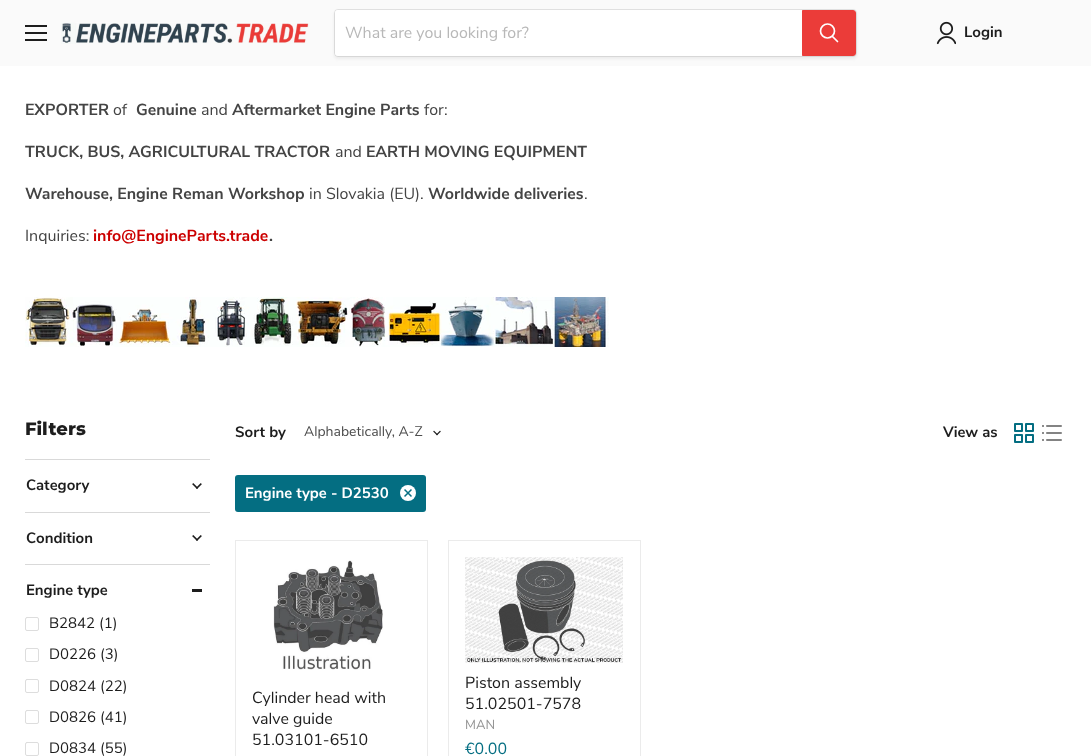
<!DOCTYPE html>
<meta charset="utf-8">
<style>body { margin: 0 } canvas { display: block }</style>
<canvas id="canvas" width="1091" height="756"></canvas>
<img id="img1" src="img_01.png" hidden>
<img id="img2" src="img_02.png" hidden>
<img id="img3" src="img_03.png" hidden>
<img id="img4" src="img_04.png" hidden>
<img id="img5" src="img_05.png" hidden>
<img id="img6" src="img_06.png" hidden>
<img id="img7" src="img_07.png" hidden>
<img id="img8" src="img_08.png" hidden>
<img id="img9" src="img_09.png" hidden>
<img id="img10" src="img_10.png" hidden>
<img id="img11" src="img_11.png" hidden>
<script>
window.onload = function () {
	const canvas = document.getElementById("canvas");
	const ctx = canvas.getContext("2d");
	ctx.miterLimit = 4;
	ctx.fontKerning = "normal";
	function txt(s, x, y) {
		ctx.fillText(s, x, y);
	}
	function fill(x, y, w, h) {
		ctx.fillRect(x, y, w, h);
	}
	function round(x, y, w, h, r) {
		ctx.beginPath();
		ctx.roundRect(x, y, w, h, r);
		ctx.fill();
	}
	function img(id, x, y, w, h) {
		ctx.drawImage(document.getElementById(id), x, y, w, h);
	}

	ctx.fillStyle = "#FFFFFF";
	fill(0, 0, 1091, 756);
	ctx.fillStyle = "#FAFAFA";
	fill(0, 0, 1091, 66);
	ctx.fillStyle = "#1D1D1D";
	fill(25, 25, 22, 2);
	fill(25, 32, 22, 2);
	fill(25, 39, 22, 2);
	img("img1", 61, 22, 248, 22);
	ctx.fillStyle = "rgba(128, 128, 128, 0.11)";
	ctx.filter = "blur(1.5px)";
	ctx.beginPath();
	ctx.roundRect(334, 11, 523, 48, 4);
	ctx.fill();
	ctx.filter = "none";
	ctx.beginPath();
	ctx.roundRect(334.5, 9.5, 522, 47, 3.5);
	ctx.strokeStyle = "rgba(128, 128, 128, 0.2)";
	ctx.stroke();
	ctx.fillStyle = "#FFFFFF";
	ctx.beginPath();
	ctx.roundRect(335, 10, 467, 46, [3, 0, 0, 3]);
	ctx.fill();
	ctx.fillStyle = "#EB3C39";
	ctx.beginPath();
	ctx.roundRect(802.5, 10.5, 53, 45, [0, 2.5, 2.5, 0]);
	ctx.fill();
	ctx.strokeStyle = "#EB3C39";
	ctx.stroke();
	ctx.beginPath();
	ctx.moveTo(837.5, 41.5);
	ctx.lineTo(832.5, 36.5);
	ctx.strokeStyle = "#FFFFFF";
	ctx.lineWidth = 1.7;
	ctx.lineCap = "round";
	ctx.stroke();
	ctx.beginPath();
	ctx.arc(827.5, 31, 7, 0, Math.PI * 2);
	ctx.stroke();
	img("img2", 936, 21, 20, 24);
	img("img3", 25, 297, 584, 50);
	ctx.fillStyle = "#D9D9D9";
	fill(25, 459, 185, 1);
	img("img4", 192, 483, 10, 6);
	fill(25, 512, 185, 1);
	img("img5", 192, 535, 10, 6);
	fill(25, 564, 185, 1);
	ctx.fillStyle = "#1D1D1D";
	fill(192, 589, 10, 3);
	ctx.beginPath();
	ctx.roundRect(25.5, 617.5, 13, 13, 1.5);
	ctx.strokeStyle = "#DDDDDD";
	ctx.lineWidth = 1;
	ctx.stroke();
	ctx.beginPath();
	ctx.roundRect(25.5, 648.5, 13, 13, 1.5);
	ctx.stroke();
	ctx.beginPath();
	ctx.roundRect(25.5, 679.5, 13, 13, 1.5);
	ctx.stroke();
	ctx.beginPath();
	ctx.roundRect(25.5, 710.5, 13, 13, 1.5);
	ctx.stroke();
	ctx.beginPath();
	ctx.roundRect(25.5, 742.5, 13, 13, 1.5);
	ctx.stroke();
	img("img6", 433, 430, 8, 6);
	img("img7", 1014, 423, 20, 20);
	img("img8", 1042, 425, 20, 16);
	ctx.fillStyle = "#046E82";
	round(235, 475, 191, 37, 3);
	ctx.fillStyle = "#FFFFFF";
	ctx.beginPath();
	ctx.arc(408, 493, 8, 0, Math.PI * 2);
	ctx.fill();
	img("img9", 404, 489, 8, 8);
	ctx.strokeStyle = "#EBEBEB";
	ctx.strokeRect(235.5, 540.5, 192, 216);
	img("img10", 273, 560, 110, 110);
	ctx.strokeRect(448.5, 540.5, 192, 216);
	img("img11", 465, 557, 158, 106);
	ctx.font = "16px Nunito Sans";
	ctx.fillStyle = "#B8B8B8";
	txt("What are you looking for?", 345, 38);
	ctx.font = "bold 15px Nunito Sans";
	ctx.fillStyle = "#1D1D1D";
	txt("Login", 964, 37);
	ctx.font = "bold 16px Nunito Sans";
	ctx.fillStyle = "#444444";
	txt("EXPORTER", 25, 115);
	ctx.font = "16px Nunito Sans";
	txt("of", 113, 115);
	ctx.font = "bold 16px Nunito Sans";
	txt("Genuine", 136, 115);
	ctx.font = "16px Nunito Sans";
	txt("and", 201, 115);
	ctx.font = "bold 16px Nunito Sans";
	txt("Aftermarket Engine Parts", 232, 115);
	ctx.font = "16px Nunito Sans";
	txt("for:", 424, 115);
	ctx.font = "bold 16px Nunito Sans";
	txt("TRUCK, BUS, AGRICULTURAL TRACTOR", 25, 157);
	ctx.font = "16px Nunito Sans";
	txt("and", 335, 157);
	ctx.font = "bold 16px Nunito Sans";
	txt("EARTH MOVING EQUIPMENT", 366, 157);
	txt("Warehouse, Engine Reman Workshop", 25, 199);
	ctx.font = "16px Nunito Sans";
	txt("in Slovakia (EU).", 309, 199);
	ctx.font = "bold 16px Nunito Sans";
	txt("Worldwide deliveries", 428, 199);
	ctx.font = "16px Nunito Sans";
	txt(".", 584, 199);
	txt("Inquiries:", 25, 241);
	ctx.font = "bold 16px Nunito Sans";
	ctx.fillStyle = "#CC0000";
	txt("info@EngineParts.trade", 93, 241);
	ctx.fillStyle = "#444444";
	txt(".", 269, 241);
	ctx.font = "800 18px Montserrat";
	ctx.fillStyle = "#1D1D1D";
	txt("Filters", 25, 435);
	ctx.font = "bold 15px Nunito Sans";
	txt("Category", 26, 490);
	txt("Condition", 26, 543);
	txt("Engine type", 26, 595);
	ctx.font = "15px Nunito Sans";
	txt("B2842 (1)", 49, 628);
	txt("D0226 (3)", 49, 659);
	txt("D0824 (22)", 49, 691);
	txt("D0826 (41)", 49, 722);
	txt("D0834 (55)", 49, 753);
	ctx.font = "bold 15px Nunito Sans";
	txt("Sort by", 235, 437);
	ctx.font = "14px Nunito Sans";
	ctx.fillStyle = "#4D4D4D";
	txt("Alphabetically, A-Z", 304, 436);
	ctx.font = "bold 15px Nunito Sans";
	ctx.fillStyle = "#1D1D1D";
	txt("View as", 943, 437);
	ctx.fillStyle = "#FFFFFF";
	txt("Engine type - D2530", 245, 498);
	ctx.font = "16px Nunito Sans";
	ctx.fillStyle = "#1D1D1D";
	txt("Cylinder head with", 252, 703);
	txt("valve guide", 252, 724);
	txt("51.03101-6510", 252, 745);
	txt("Piston assembly", 465, 688);
	txt("51.02501-7578", 465, 709);
	ctx.font = "13px Nunito Sans";
	ctx.fillStyle = "#949494";
	txt("MAN", 465, 729);
	ctx.font = "16px Nunito Sans";
	ctx.fillStyle = "#046E82";
	txt("€0.00", 465, 754);
};
</script>
